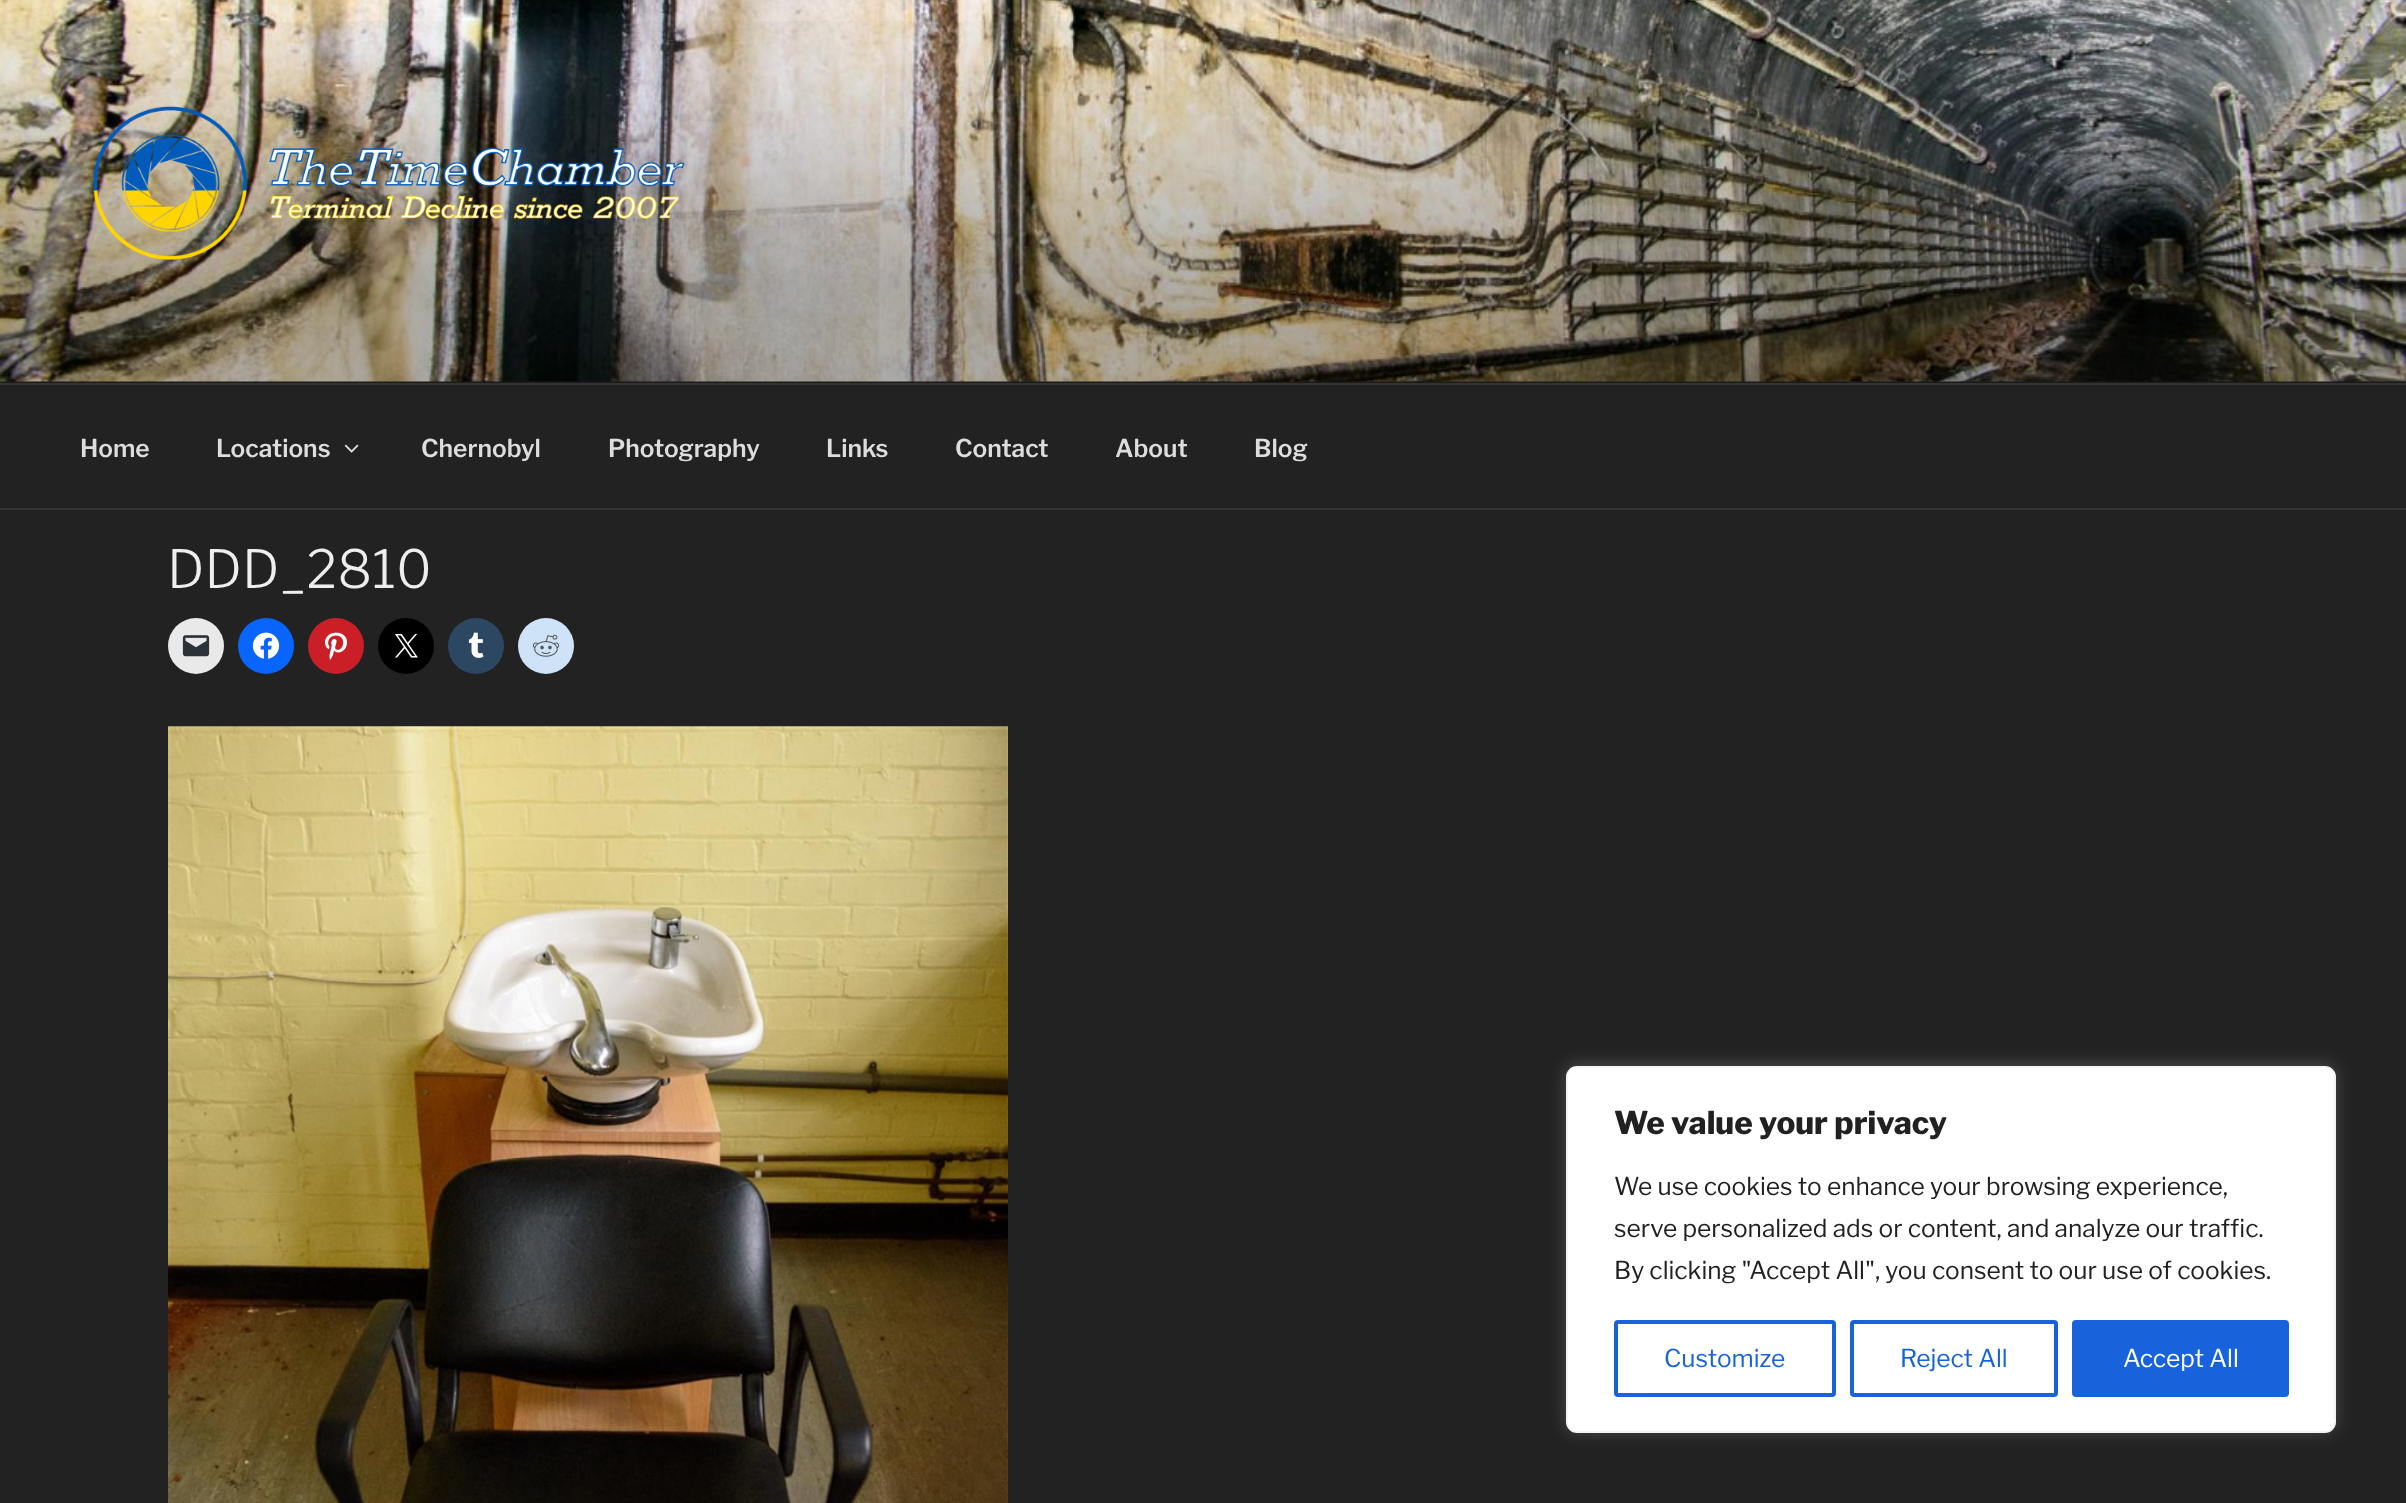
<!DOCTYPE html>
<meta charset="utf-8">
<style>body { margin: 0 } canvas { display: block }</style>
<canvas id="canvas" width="2406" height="1503"></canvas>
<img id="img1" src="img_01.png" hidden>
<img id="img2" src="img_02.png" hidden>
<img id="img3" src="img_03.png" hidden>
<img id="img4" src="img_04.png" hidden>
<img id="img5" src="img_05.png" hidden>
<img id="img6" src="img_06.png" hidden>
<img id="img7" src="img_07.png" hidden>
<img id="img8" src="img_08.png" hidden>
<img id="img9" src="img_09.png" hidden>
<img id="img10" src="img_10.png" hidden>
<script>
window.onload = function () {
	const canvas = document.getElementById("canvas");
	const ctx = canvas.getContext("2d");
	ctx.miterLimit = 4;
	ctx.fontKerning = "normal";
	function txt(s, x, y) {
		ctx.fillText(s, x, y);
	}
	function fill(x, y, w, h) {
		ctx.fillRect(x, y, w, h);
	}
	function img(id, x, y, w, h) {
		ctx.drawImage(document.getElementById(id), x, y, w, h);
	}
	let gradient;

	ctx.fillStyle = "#222222";
	fill(0, 0, 2406, 1503);
	ctx.fillStyle = "#262626";
	fill(0, 381, 2406, 2);
	img("img1", 0, 0, 2406, 382);
	gradient = ctx.createLinearGradient(1203, 0, 1203, 383);
	gradient.addColorStop(0, "rgba(0, 0, 0, 0)");
	gradient.addColorStop(0.75, "rgba(0, 0, 0, 0.3)");
	gradient.addColorStop(1, "rgba(0, 0, 0, 0.3)");
	ctx.fillStyle = gradient;
	fill(0, 21, 2406, 362);
	img("img2", 93, 84, 592, 176);
	ctx.fillStyle = "#333333";
	fill(0, 383, 2406, 2);
	fill(0, 508, 2406, 2);
	img("img3", 344, 444, 15, 9);
	ctx.fillStyle = "#E9E9E9";
	ctx.beginPath();
	ctx.arc(196, 646, 28, 0, Math.PI * 2);
	ctx.fill();
	img("img4", 182, 635, 28, 22);
	ctx.fillStyle = "#0866FF";
	ctx.beginPath();
	ctx.arc(266, 646, 28, 0, Math.PI * 2);
	ctx.fill();
	img("img5", 252, 632, 28, 27);
	ctx.fillStyle = "#CA1F27";
	ctx.beginPath();
	ctx.arc(336, 646, 28, 0, Math.PI * 2);
	ctx.fill();
	img("img6", 325, 632, 22, 28);
	ctx.fillStyle = "#000000";
	ctx.beginPath();
	ctx.arc(406, 646, 28, 0, Math.PI * 2);
	ctx.fill();
	img("img7", 395, 633, 23, 25);
	ctx.fillStyle = "#2C4762";
	ctx.beginPath();
	ctx.arc(476, 646, 28, 0, Math.PI * 2);
	ctx.fill();
	img("img8", 468, 632, 16, 26);
	ctx.fillStyle = "#CEE3F8";
	ctx.beginPath();
	ctx.arc(546, 646, 28, 0, Math.PI * 2);
	ctx.fill();
	img("img9", 532, 634, 28, 23);
	img("img10", 168, 726, 840, 777);
	ctx.fillStyle = "rgba(172, 171, 171, 0.3)";
	ctx.filter = "blur(9px)";
	ctx.beginPath();
	ctx.roundRect(1566, 1064, 770, 368, 11);
	ctx.fill();
	ctx.filter = "none";
	ctx.fillStyle = "#FFFFFF";
	ctx.beginPath();
	ctx.roundRect(1567, 1067, 768, 365, 10);
	ctx.fill();
	ctx.strokeStyle = "#F4F4F4";
	ctx.lineWidth = 2;
	ctx.stroke();
	ctx.beginPath();
	ctx.roundRect(1616, 1322, 218, 73, 2);
	ctx.strokeStyle = "#1863DC";
	ctx.lineWidth = 4;
	ctx.stroke();
	ctx.beginPath();
	ctx.roundRect(1852, 1322, 204, 73, 2);
	ctx.stroke();
	ctx.fillStyle = "#1863DC";
	ctx.beginPath();
	ctx.roundRect(2074, 1322, 213, 73, 2);
	ctx.fill();
	ctx.stroke();
	ctx.font = "100 24.5px 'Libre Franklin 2'";
	ctx.fillStyle = "#DDDDDD";
	txt("Home", 80, 457);
	txt("Locations", 216, 457);
	txt("Chernobyl", 421, 457);
	txt("Photography", 608, 457);
	txt("Links", 826, 457);
	txt("Contact", 955, 457);
	txt("About", 1115, 457);
	txt("Blog", 1254, 457);
	ctx.font = "100 52.5px Libre Franklin";
	ctx.fillStyle = "#EEEEEE";
	txt("DDD_2810", 167, 588);
	ctx.font = "100 31.5px 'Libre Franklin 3'";
	ctx.fillStyle = "#212121";
	txt("We value your privacy", 1614, 1134);
	ctx.font = "100 24.5px 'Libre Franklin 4'";
	txt("We use cookies to enhance your browsing experience,", 1614, 1195);
	txt("serve personalized ads or content, and analyze our traffic.", 1614, 1237);
	txt("By clicking \"Accept All\", you consent to our use of cookies.", 1614, 1279);
	ctx.fillStyle = "#1863DC";
	txt("Customize", 1664, 1367);
	txt("Reject All", 1900, 1367);
	ctx.fillStyle = "#FFFFFF";
	txt("Accept All", 2123, 1367);
};
</script>
